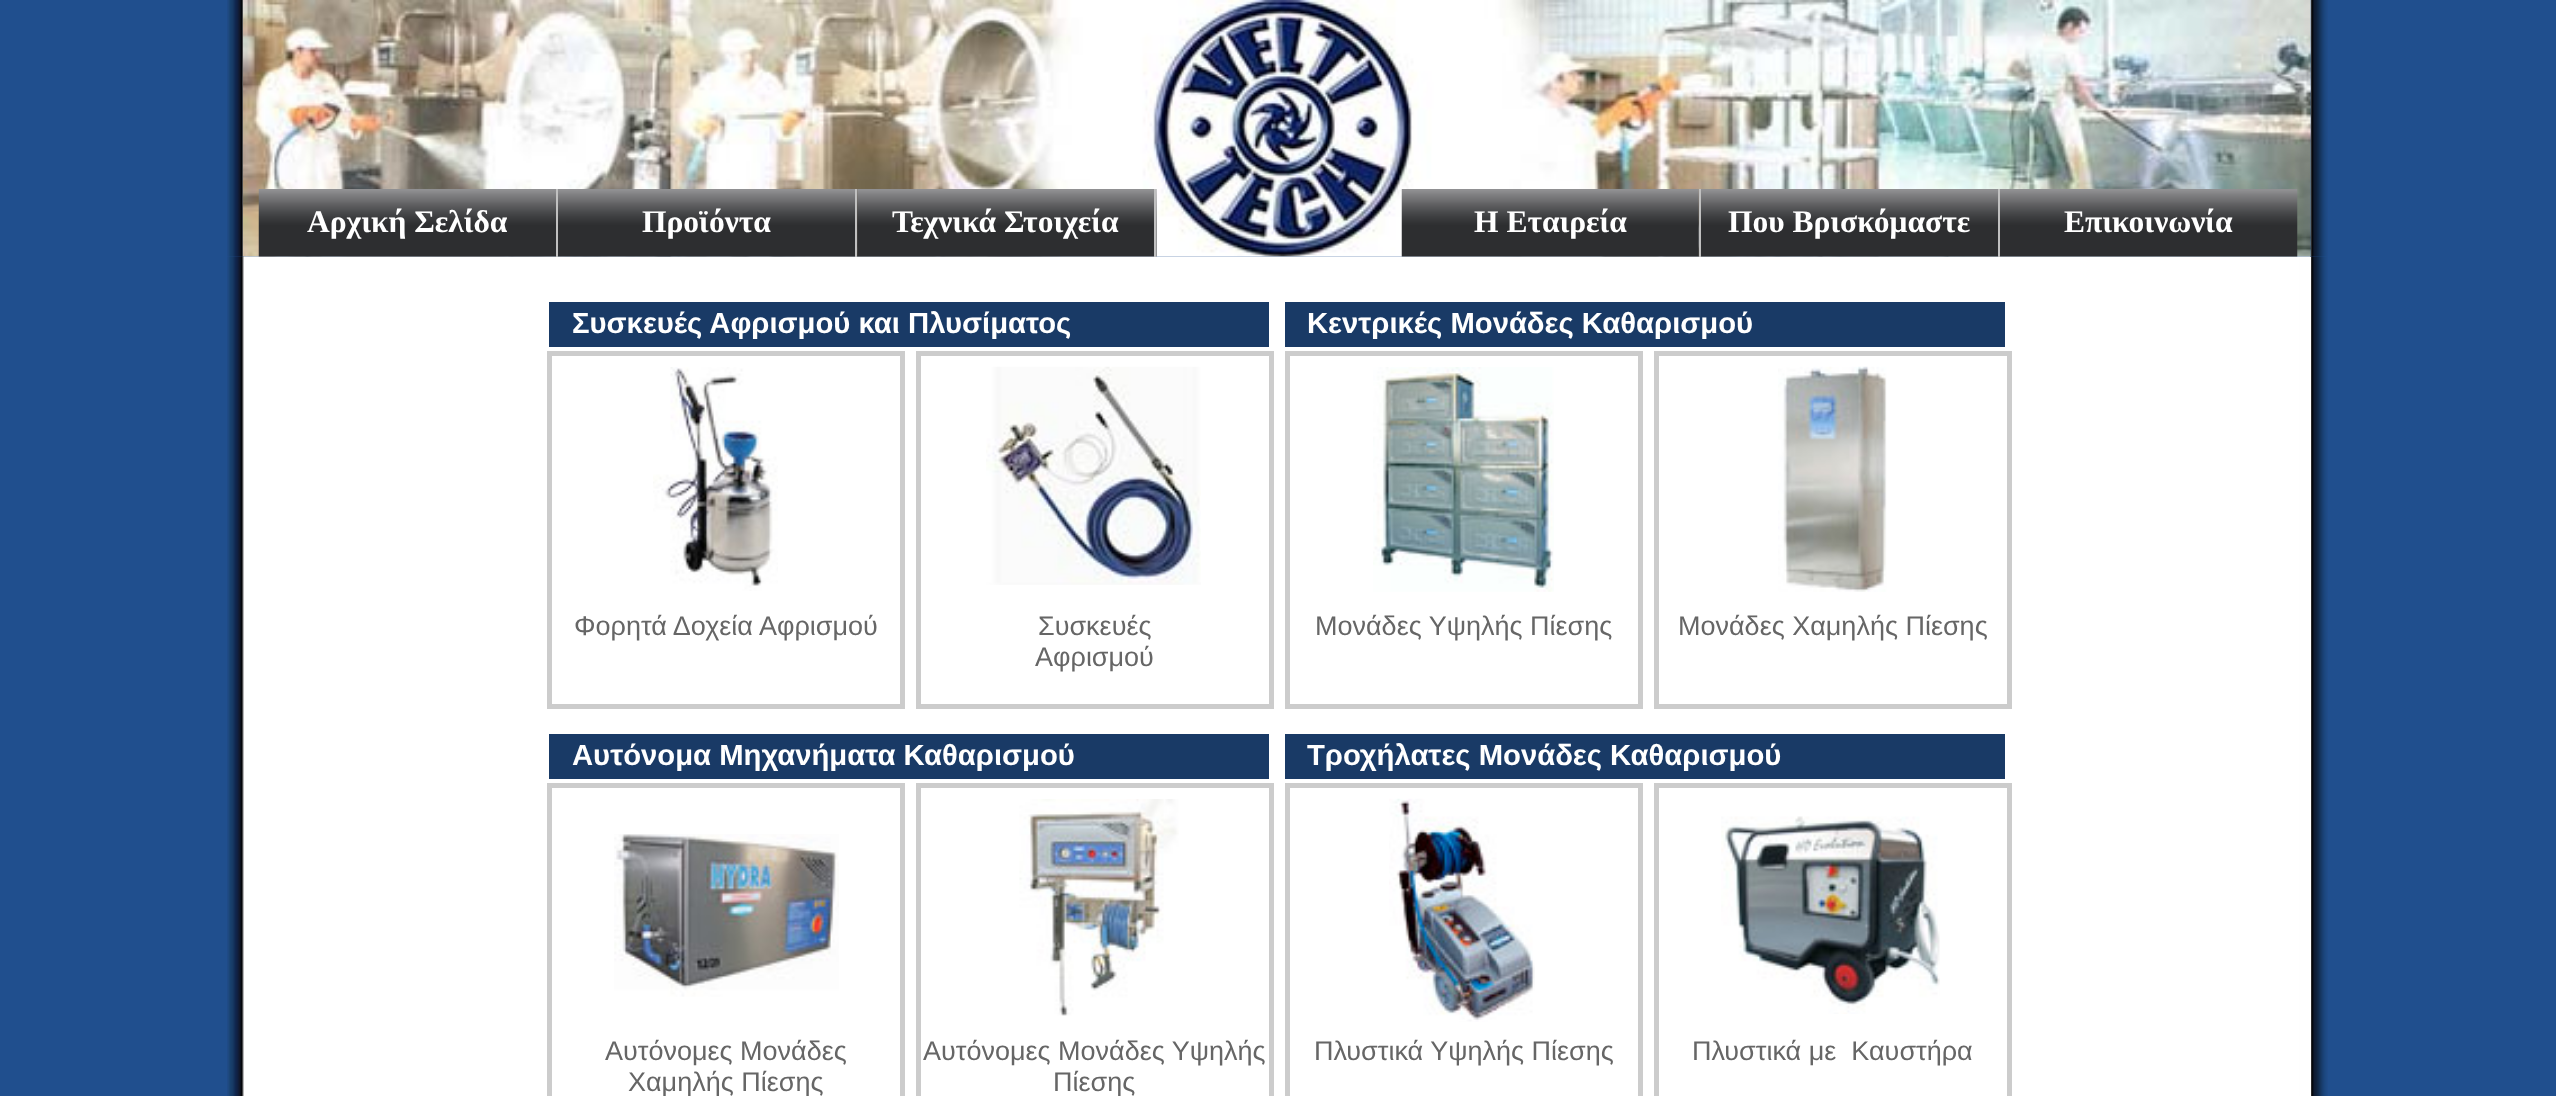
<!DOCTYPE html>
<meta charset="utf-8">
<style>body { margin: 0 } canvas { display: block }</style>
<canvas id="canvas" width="2556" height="1096"></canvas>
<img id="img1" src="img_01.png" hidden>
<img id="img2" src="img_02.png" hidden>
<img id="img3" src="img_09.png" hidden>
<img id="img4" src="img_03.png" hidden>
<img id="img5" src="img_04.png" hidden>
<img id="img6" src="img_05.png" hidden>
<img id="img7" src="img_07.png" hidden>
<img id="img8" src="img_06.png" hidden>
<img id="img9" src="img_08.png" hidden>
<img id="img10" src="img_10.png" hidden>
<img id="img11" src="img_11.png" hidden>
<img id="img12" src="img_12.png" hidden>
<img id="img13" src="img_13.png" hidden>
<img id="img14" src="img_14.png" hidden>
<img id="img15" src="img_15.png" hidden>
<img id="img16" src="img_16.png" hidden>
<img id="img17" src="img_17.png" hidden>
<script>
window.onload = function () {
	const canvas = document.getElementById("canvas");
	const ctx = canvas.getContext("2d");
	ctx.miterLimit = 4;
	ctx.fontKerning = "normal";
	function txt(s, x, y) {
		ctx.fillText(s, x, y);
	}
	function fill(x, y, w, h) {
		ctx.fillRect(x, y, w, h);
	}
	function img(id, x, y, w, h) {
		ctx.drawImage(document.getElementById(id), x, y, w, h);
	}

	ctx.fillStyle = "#204F8E";
	fill(0, 0, 2556, 1096);
	img("img1", 227, 0, 2101, 257);
	fill(243, 0, 2068, 257);
	img("img2", 243, 0, 2068, 257);
	img("img3", 227, 256, 2101, 840);
	img("img4", 258, 189, 298, 68);
	ctx.fillStyle = "#C0C0C0";
	fill(556, 189, 2, 68);
	img("img5", 558, 189, 300, 68);
	fill(855, 189, 2, 68);
	img("img6", 857, 189, 300, 68);
	fill(1154, 189, 2, 68);
	img("img7", 1698, 189, 300, 68);
	img("img8", 1401, 189, 298, 68);
	fill(1699, 189, 2, 68);
	img("img9", 2000, 189, 298, 68);
	fill(1998, 189, 2, 68);
	ctx.fillStyle = "#FFFFFF";
	fill(2300, 257, 11, 839);
	ctx.fillStyle = "#193A66";
	fill(549, 302, 720, 45);
	fill(1285, 302, 720, 45);
	ctx.strokeStyle = "#CCCCCC";
	ctx.lineWidth = 5;
	ctx.strokeRect(549.5, 353.5, 353, 353);
	img("img10", 653, 367, 125, 224);
	ctx.strokeRect(918.5, 353.5, 353, 353);
	img("img11", 986, 366, 215, 219);
	ctx.strokeRect(1287.5, 353.5, 353, 353);
	img("img12", 1373, 367, 181, 225);
	ctx.strokeRect(1656.5, 353.5, 353, 353);
	img("img13", 1778, 366, 109, 226);
	fill(549, 734, 720, 45);
	fill(1285, 734, 720, 45);
	ctx.strokeRect(549.5, 785.5, 353, 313);
	img("img14", 614, 834, 225, 163);
	ctx.strokeRect(918.5, 785.5, 353, 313);
	img("img15", 1019, 799, 160, 217);
	ctx.strokeRect(1287.5, 785.5, 353, 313);
	img("img16", 1389, 798, 146, 224);
	ctx.strokeRect(1656.5, 785.5, 353, 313);
	img("img17", 1721, 816, 219, 198);
	ctx.font = "bold 31.5px Liberation Serif";
	ctx.fillStyle = "#FFFFFF";
	txt("Αρχική Σελίδα", 307, 232);
	txt("Προϊόντα", 642, 232);
	txt("Τεχνικά Στοιχεία", 892, 232);
	txt("Η Εταιρεία", 1474, 232);
	txt("Που Βρισκόμαστε", 1728, 232);
	txt("Επικοινωνία", 2064, 232);
	ctx.font = "bold 29.25px Liberation Sans";
	txt("Συσκευές Αφρισμού και Πλυσίματος", 572, 333);
	txt("Κεντρικές Μονάδες Καθαρισμού", 1307, 333);
	ctx.font = "27px Liberation Sans";
	ctx.fillStyle = "#666666";
	txt("Φορητά Δοχεία Αφρισμού", 574, 635);
	txt("Συσκευές", 1038, 635);
	txt("Αφρισμού", 1035, 666);
	txt("Μονάδες Υψηλής Πίεσης", 1315, 635);
	txt("Μονάδες Χαμηλής Πίεσης", 1678, 635);
	ctx.font = "bold 29.25px Liberation Sans";
	ctx.fillStyle = "#FFFFFF";
	txt("Αυτόνομα Μηχανήματα Καθαρισμού", 572, 765);
	txt("Τροχήλατες Μονάδες Καθαρισμού", 1307, 765);
	ctx.font = "27px Liberation Sans";
	ctx.fillStyle = "#666666";
	txt("Αυτόνομες Μονάδες", 605, 1060);
	txt("Χαμηλής Πίεσης", 628, 1091);
	txt("Αυτόνομες Μονάδες Υψηλής", 923, 1060);
	txt("Πίεσης", 1053, 1091);
	txt("Πλυστικά Υψηλής Πίεσης", 1314, 1060);
	txt("Πλυστικά με  Καυστήρα", 1692, 1060);
};
</script>
